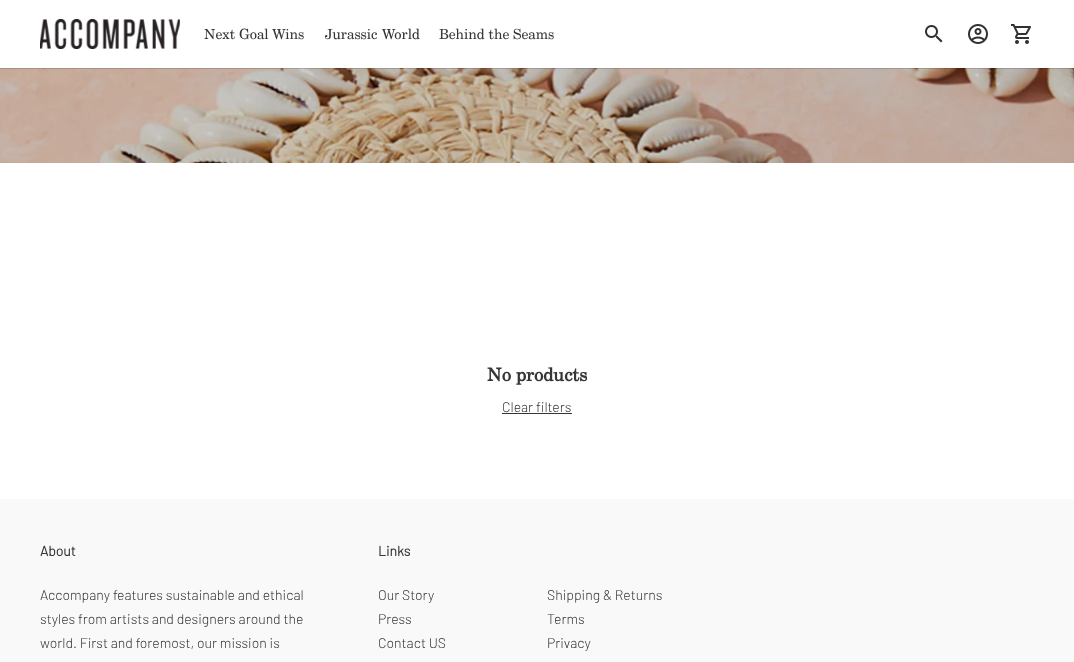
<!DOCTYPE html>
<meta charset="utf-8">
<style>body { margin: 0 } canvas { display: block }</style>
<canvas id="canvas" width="1074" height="662"></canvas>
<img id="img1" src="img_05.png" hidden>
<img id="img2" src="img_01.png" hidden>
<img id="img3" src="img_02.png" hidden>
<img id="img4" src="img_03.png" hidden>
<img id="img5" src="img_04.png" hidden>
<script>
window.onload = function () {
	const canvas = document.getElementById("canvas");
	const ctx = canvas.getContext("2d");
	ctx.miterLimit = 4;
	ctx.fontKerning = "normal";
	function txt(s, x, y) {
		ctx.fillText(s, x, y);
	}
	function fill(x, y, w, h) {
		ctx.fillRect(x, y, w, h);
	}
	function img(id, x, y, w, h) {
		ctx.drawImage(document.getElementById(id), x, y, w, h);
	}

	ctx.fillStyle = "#FFFFFF";
	fill(0, 0, 1074, 662);
	img("img1", 0, 68, 1074, 95);
	ctx.fillStyle = "rgba(0, 0, 0, 0.15)";
	ctx.filter = "blur(0.5px)";
	ctx.beginPath();
	ctx.rect(0, 1, 1074, 68);
	ctx.fill();
	ctx.filter = "none";
	ctx.fillStyle = "#FFFFFF";
	fill(0, 0, 1074, 68);
	img("img2", 40, 19, 140, 30);
	img("img3", 925, 25, 18, 18);
	img("img4", 968, 24, 20, 20);
	img("img5", 1011, 24, 20, 20);
	ctx.fillStyle = "#363636";
	fill(502, 413, 70, 1);
	ctx.fillStyle = "#F9F9F9";
	fill(0, 499, 1074, 163);
	ctx.font = "14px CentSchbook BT";
	ctx.fillStyle = "#363636";
	txt("Next Goal Wins", 204, 39);
	ctx.wordSpacing = "1px";
	txt("Jurassic World", 325, 39);
	ctx.wordSpacing = "0px";
	txt("Behind the Seams", 439, 39);
	ctx.font = "bold 18px CentSchbook BT";
	txt("No products", 487, 381);
	ctx.font = "300 14px Barlow";
	txt("Clear filters", 502, 412);
	ctx.font = "bold 14px Barlow";
	txt("About", 40, 556);
	ctx.font = "300 14px Barlow";
	txt("Accompany features sustainable and ethical", 40, 600);
	txt("styles from artists and designers around the", 40, 624);
	txt("world. First and foremost, our mission is", 40, 648);
	ctx.font = "bold 14px Barlow";
	txt("Links", 378, 556);
	ctx.font = "300 14px Barlow";
	txt("Our Story", 378, 600);
	txt("Shipping & Returns", 547, 600);
	txt("Press", 378, 624);
	txt("Terms", 547, 624);
	txt("Contact US", 378, 648);
	txt("Privacy", 547, 648);
};
</script>
